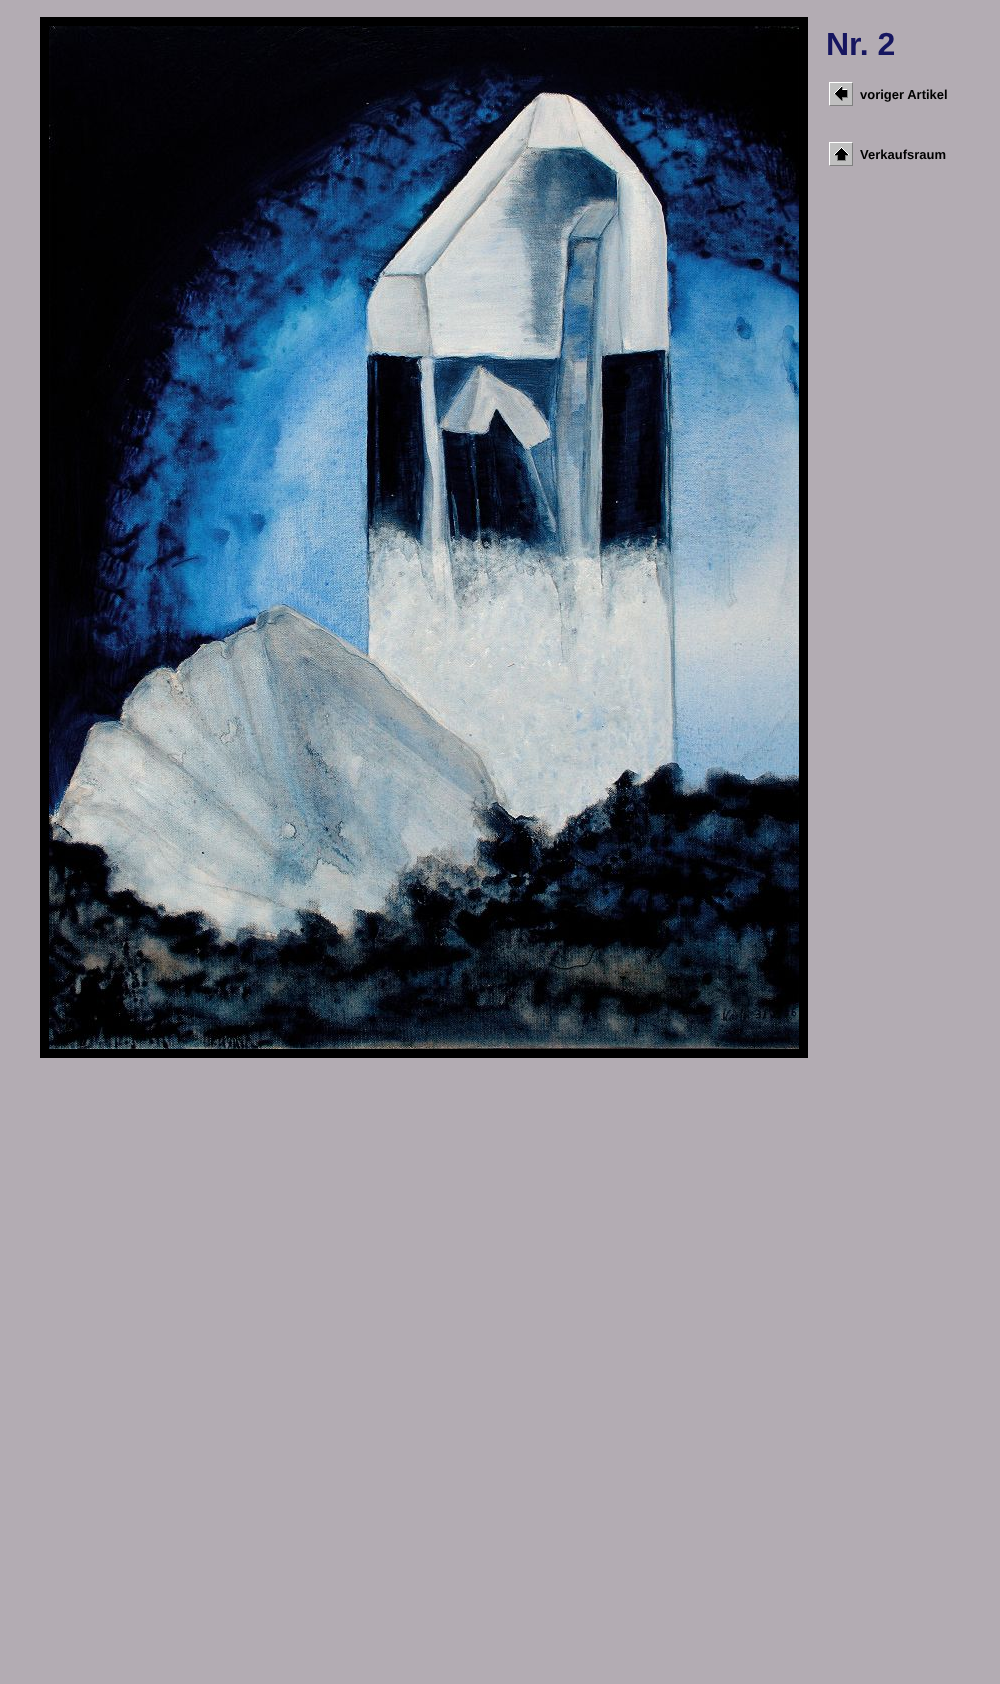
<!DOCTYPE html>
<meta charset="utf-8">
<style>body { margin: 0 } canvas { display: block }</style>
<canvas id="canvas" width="1000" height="1684"></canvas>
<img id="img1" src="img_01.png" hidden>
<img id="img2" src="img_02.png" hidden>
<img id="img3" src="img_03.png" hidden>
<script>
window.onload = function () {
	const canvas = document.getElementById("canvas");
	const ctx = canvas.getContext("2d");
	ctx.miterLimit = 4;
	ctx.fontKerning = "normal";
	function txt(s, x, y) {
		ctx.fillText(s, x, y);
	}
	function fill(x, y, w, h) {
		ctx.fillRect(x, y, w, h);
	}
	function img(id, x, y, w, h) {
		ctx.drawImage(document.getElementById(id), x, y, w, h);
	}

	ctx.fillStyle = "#B3ACB3";
	fill(0, 0, 1000, 1684);
	ctx.fillStyle = "#000000";
	fill(40, 17, 768, 1041);
	img("img1", 49, 26, 750, 1023);
	img("img2", 829, 82, 24, 24);
	img("img3", 829, 142, 24, 24);
	ctx.font = "bold 32px Liberation Sans";
	ctx.fillStyle = "#161660";
	txt("Nr. 2", 826, 55);
	ctx.font = "bold 13px Liberation Sans";
	ctx.fillStyle = "#000000";
	txt("voriger Artikel", 860, 99);
	txt("Verkaufsraum", 860, 159);
};
</script>
